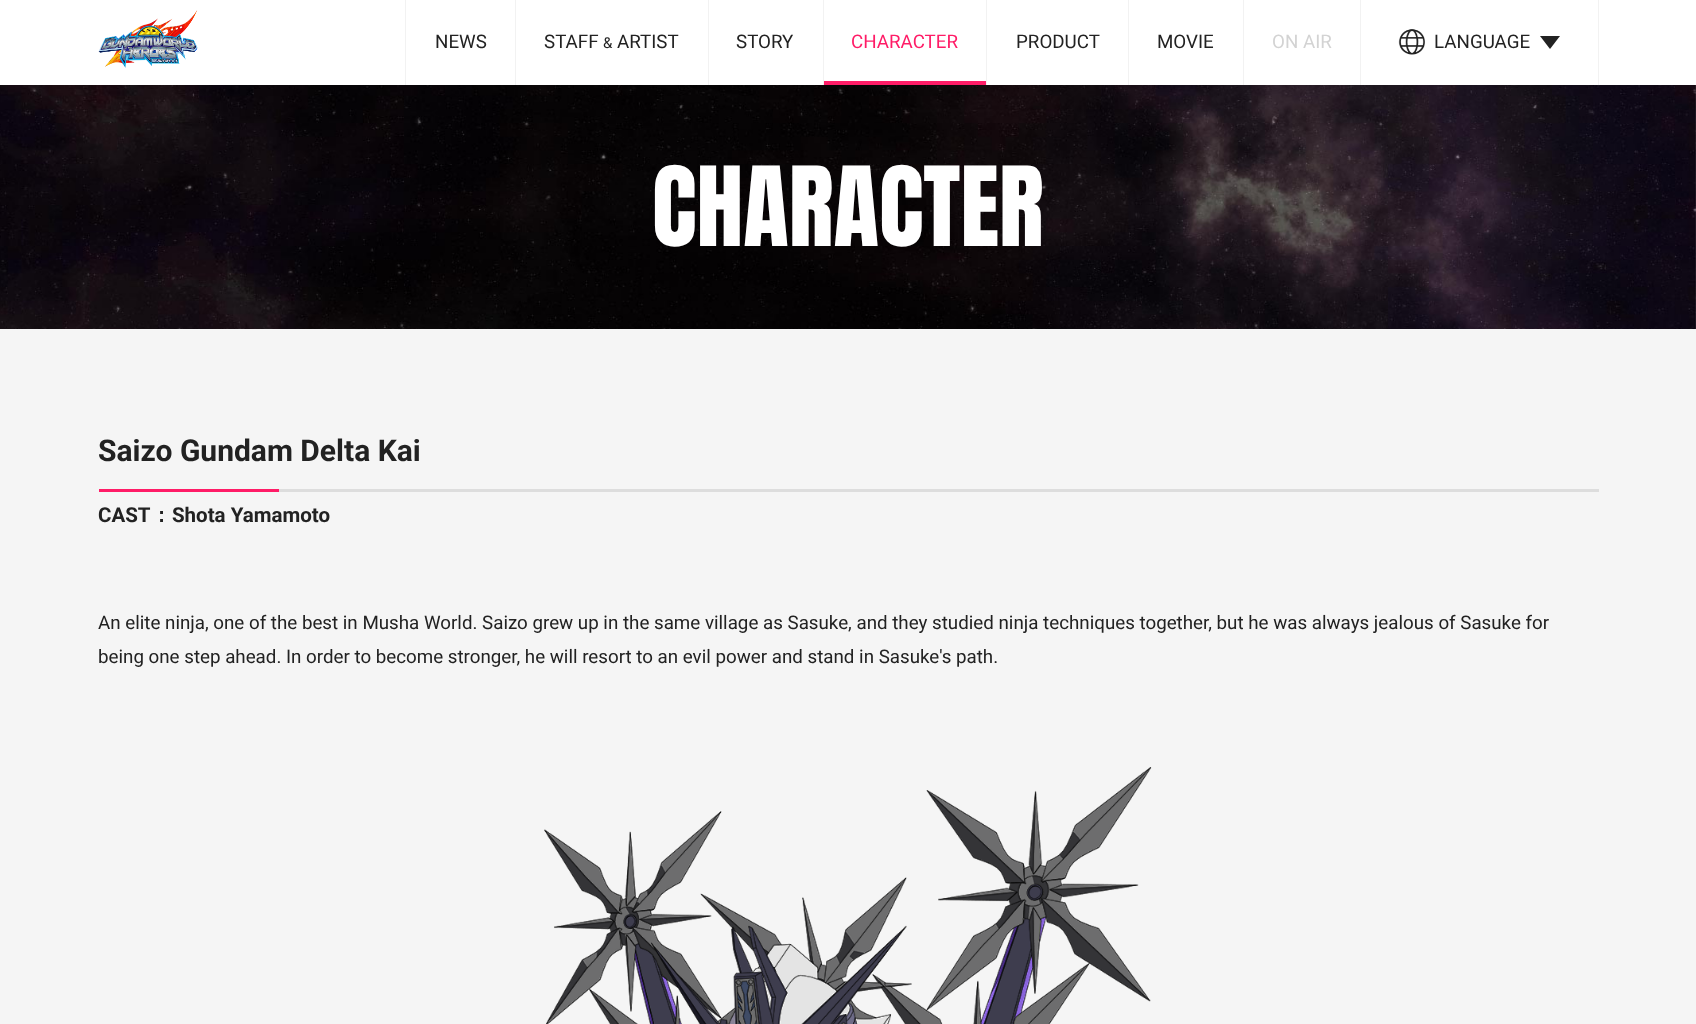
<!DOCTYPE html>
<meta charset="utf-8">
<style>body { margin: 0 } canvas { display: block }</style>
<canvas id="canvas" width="1696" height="1024"></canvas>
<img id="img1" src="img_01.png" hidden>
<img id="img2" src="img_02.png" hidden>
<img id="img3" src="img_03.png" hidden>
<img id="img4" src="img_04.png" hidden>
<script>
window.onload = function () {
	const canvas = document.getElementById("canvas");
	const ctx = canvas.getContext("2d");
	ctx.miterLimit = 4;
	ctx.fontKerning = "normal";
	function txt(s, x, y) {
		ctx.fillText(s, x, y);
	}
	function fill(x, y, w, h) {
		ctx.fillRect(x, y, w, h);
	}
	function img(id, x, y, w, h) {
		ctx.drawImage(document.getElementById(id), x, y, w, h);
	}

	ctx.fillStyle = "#FFFFFF";
	fill(0, 0, 1696, 1024);
	img("img1", 98, 10, 100, 58);
	ctx.fillStyle = "#F2F2F2";
	fill(405, 0, 1, 85);
	fill(515, 0, 1, 85);
	fill(708, 0, 1, 85);
	fill(823, 0, 1, 85);
	ctx.fillStyle = "#FF1C67";
	fill(824, 81, 162, 4);
	ctx.fillStyle = "#F2F2F2";
	fill(986, 0, 1, 85);
	fill(1128, 0, 1, 85);
	fill(1360, 0, 1, 85);
	fill(1243, 0, 1, 85);
	fill(1598, 0, 1, 85);
	img("img2", 1398, 29, 27, 26);
	ctx.fillStyle = "#222222";
	ctx.beginPath();
	ctx.moveTo(1540, 36);
	ctx.lineTo(1560, 36);
	ctx.lineTo(1550, 49);
	ctx.closePath();
	ctx.fill();
	ctx.fillStyle = "#F5F5F5";
	fill(0, 329, 1696, 695);
	ctx.fillStyle = "#DDDDDD";
	fill(279, 489, 1320, 3);
	ctx.fillStyle = "#FF1C67";
	fill(99, 489, 180, 3);
	img("img3", 544, 767, 608, 257);
	img("img4", 0, 85, 1696, 244);
	ctx.font = "18.75px Roboto";
	ctx.fillStyle = "#222222";
	txt("NEWS", 435, 48);
	txt("STAFF", 544, 48);
	ctx.font = "15px Roboto";
	txt("&", 603, 48);
	ctx.font = "18.75px Roboto";
	txt("ARTIST", 617, 48);
	txt("STORY", 736, 48);
	ctx.fillStyle = "#FF1C67";
	txt("CHARACTER", 851, 48);
	ctx.fillStyle = "#222222";
	txt("PRODUCT", 1016, 48);
	txt("MOVIE", 1157, 48);
	ctx.fillStyle = "#D3D3D3";
	txt("ON AIR", 1272, 48);
	ctx.fillStyle = "#222222";
	txt("LANGUAGE", 1434, 48);
	ctx.font = "93.75px Anton";
	ctx.fillStyle = "#FFFFFF";
	txt("CHARACTER", 652, 246);
	ctx.font = "bold 30px Roboto";
	ctx.fillStyle = "#222222";
	txt("Saizo Gundam Delta Kai", 98, 461);
	ctx.font = "bold 20.5px Roboto";
	txt("CAST", 98, 522);
	ctx.font = "bold 20.5px WenQuanYi Zen Hei";
	txt("：", 151, 522);
	ctx.font = "bold 20.5px Roboto";
	txt("Shota Yamamoto", 172, 522);
	ctx.font = "18.75px Roboto";
	txt("An elite ninja, one of the best in Musha World. Saizo grew up in the same village as Sasuke, and they studied ninja techniques together, but he was always jealous of Sasuke for", 98, 629);
	txt("being one step ahead. In order to become stronger, he will resort to an evil power and stand in Sasuke's path.", 98, 663);
};
</script>
